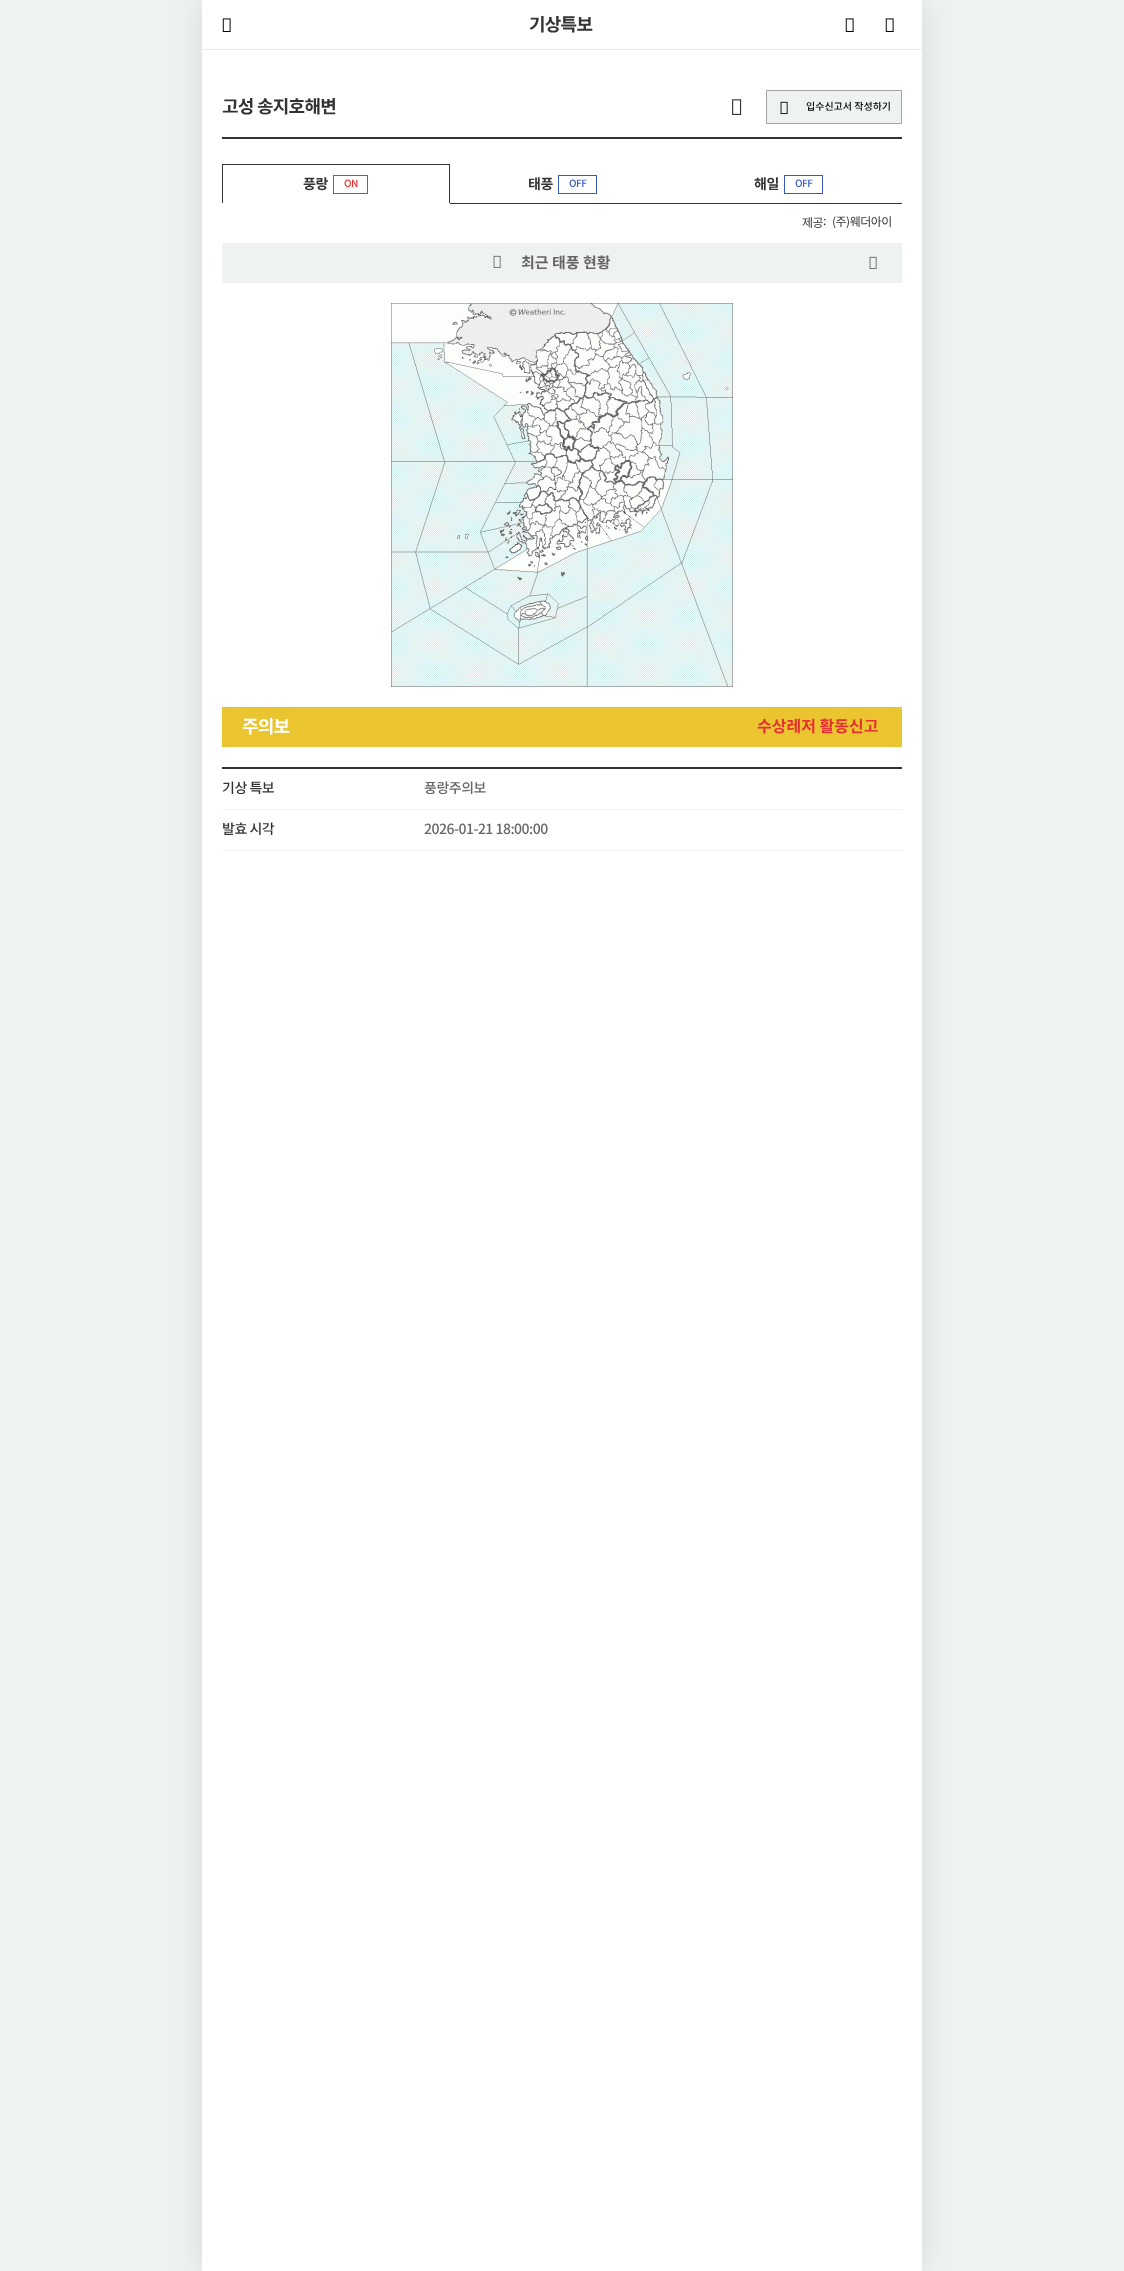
<!DOCTYPE html>
<meta charset="utf-8">
<style>body { margin: 0 } canvas { display: block }</style>
<canvas id="canvas" width="1124" height="2271"></canvas>
<img id="img1" src="img_01.png" hidden>
<img id="img2" src="img_02.png" hidden>
<img id="img3" src="img_03.png" hidden>
<img id="img4" src="img_04.png" hidden>
<img id="img5" src="img_05.png" hidden>
<script>
window.onload = function () {
	const canvas = document.getElementById("canvas");
	const ctx = canvas.getContext("2d");
	ctx.miterLimit = 4;
	ctx.fontKerning = "normal";
	function txt(s, x, y) {
		ctx.fillText(s, x, y);
	}
	function fill(x, y, w, h) {
		ctx.fillRect(x, y, w, h);
	}
	function img(id, x, y, w, h) {
		ctx.drawImage(document.getElementById(id), x, y, w, h);
	}

	ctx.fillStyle = "#EEF2F1";
	fill(0, 0, 1124, 2271);
	ctx.fillStyle = "rgba(0, 0, 0, 0.1)";
	ctx.filter = "blur(15px)";
	ctx.beginPath();
	ctx.rect(202, 0, 720, 2271);
	ctx.fill();
	ctx.filter = "none";
	ctx.fillStyle = "#FFFFFF";
	fill(202, 0, 720, 2271);
	ctx.fillStyle = "#EBEBEB";
	fill(202, 49, 720, 1);
	img("img1", 222, 18, 9, 14);
	img("img1", 845, 18, 9, 14);
	img("img1", 885, 18, 9, 14);
	ctx.fillStyle = "#333333";
	fill(222, 137, 680, 2);
	img("img2", 732, 99, 10, 16);
	ctx.fillStyle = "#EEF2F1";
	ctx.beginPath();
	ctx.rect(766.5, 90.5, 135, 33);
	ctx.fill();
	ctx.strokeStyle = "#A3A3A3";
	ctx.stroke();
	img("img3", 780, 101, 8, 13);
	ctx.fillStyle = "#333333";
	fill(449, 203, 453, 1);
	ctx.fillStyle = "#FFFFFF";
	fill(449, 203, 1, 1);
	ctx.fillStyle = "#333333";
	fill(222, 164, 228, 1);
	fill(449, 164, 1, 39);
	fill(222, 164, 1, 39);
	ctx.strokeStyle = "#E53131";
	ctx.strokeRect(333.5, 175.5, 34, 18);
	ctx.strokeStyle = "#355AC0";
	ctx.strokeRect(558.5, 175.5, 38, 18);
	ctx.strokeRect(784.5, 175.5, 38, 18);
	ctx.fillStyle = "#EEF2F1";
	fill(222, 243, 680, 40);
	img("img4", 493, 255, 8, 13);
	img("img4", 869, 256, 8, 13);
	img("img5", 391, 303, 342, 384);
	ctx.fillStyle = "#EAC530";
	fill(222, 707, 680, 40);
	ctx.fillStyle = "#333333";
	fill(222, 767, 680, 2);
	ctx.fillStyle = "#EEF2F1";
	fill(222, 809, 681, 1);
	fill(222, 850, 681, 1);
	ctx.letterSpacing = "-0.75px";
	ctx.font = "bold 18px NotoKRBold";
	ctx.fillStyle = "#333333";
	txt("기상특보", 529, 31);
	txt("고성 송지호해변", 222, 113);
	ctx.letterSpacing = "0px";
	ctx.font = "500 10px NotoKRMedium";
	ctx.fillStyle = "#000000";
	txt("입수신고서 작성하기", 806, 110);
	ctx.letterSpacing = "-0.5px";
	ctx.font = "bold 14px NotoKRBold";
	ctx.fillStyle = "#333333";
	txt("풍랑", 303, 189);
	ctx.font = "500 10px NotoKRMedium";
	ctx.fillStyle = "#E53131";
	txt("ON", 344, 187);
	ctx.font = "bold 14px NotoKRBold";
	ctx.fillStyle = "#333333";
	txt("태풍", 528, 189);
	ctx.font = "500 10px NotoKRMedium";
	ctx.fillStyle = "#355AC0";
	txt("OFF", 569, 187);
	ctx.font = "bold 14px NotoKRBold";
	ctx.fillStyle = "#333333";
	txt("해일", 754, 189);
	ctx.font = "500 10px NotoKRMedium";
	ctx.fillStyle = "#355AC0";
	txt("OFF", 795, 187);
	ctx.font = "12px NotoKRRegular";
	ctx.fillStyle = "#333333";
	txt("제공", 802, 227);
	txt(":", 823, 225);
	txt("(주)웨더아이", 832, 226);
	ctx.letterSpacing = "0px";
	ctx.font = "bold 15px NotoKRBold";
	ctx.fillStyle = "#666666";
	txt("최근 태풍 현황", 521, 268);
	ctx.letterSpacing = "-0.75px";
	ctx.font = "bold 18px NotoKRBold";
	ctx.fillStyle = "#FFFFFF";
	txt("주의보", 242, 733);
	ctx.letterSpacing = "0px";
	ctx.font = "bold 16px NotoKRBold";
	ctx.fillStyle = "#E53131";
	txt("수상레저 활동신고", 757, 732);
	ctx.letterSpacing = "-0.5px";
	ctx.font = "500 14px NotoKRMedium";
	ctx.fillStyle = "#333333";
	txt("기상 특보", 222, 793);
	ctx.fillStyle = "#666666";
	txt("풍랑주의보", 424, 793);
	ctx.fillStyle = "#333333";
	txt("발효 시각", 222, 834);
	ctx.fillStyle = "#666666";
	txt("2026-01-21 18:00:00", 424, 834);
};
</script>
